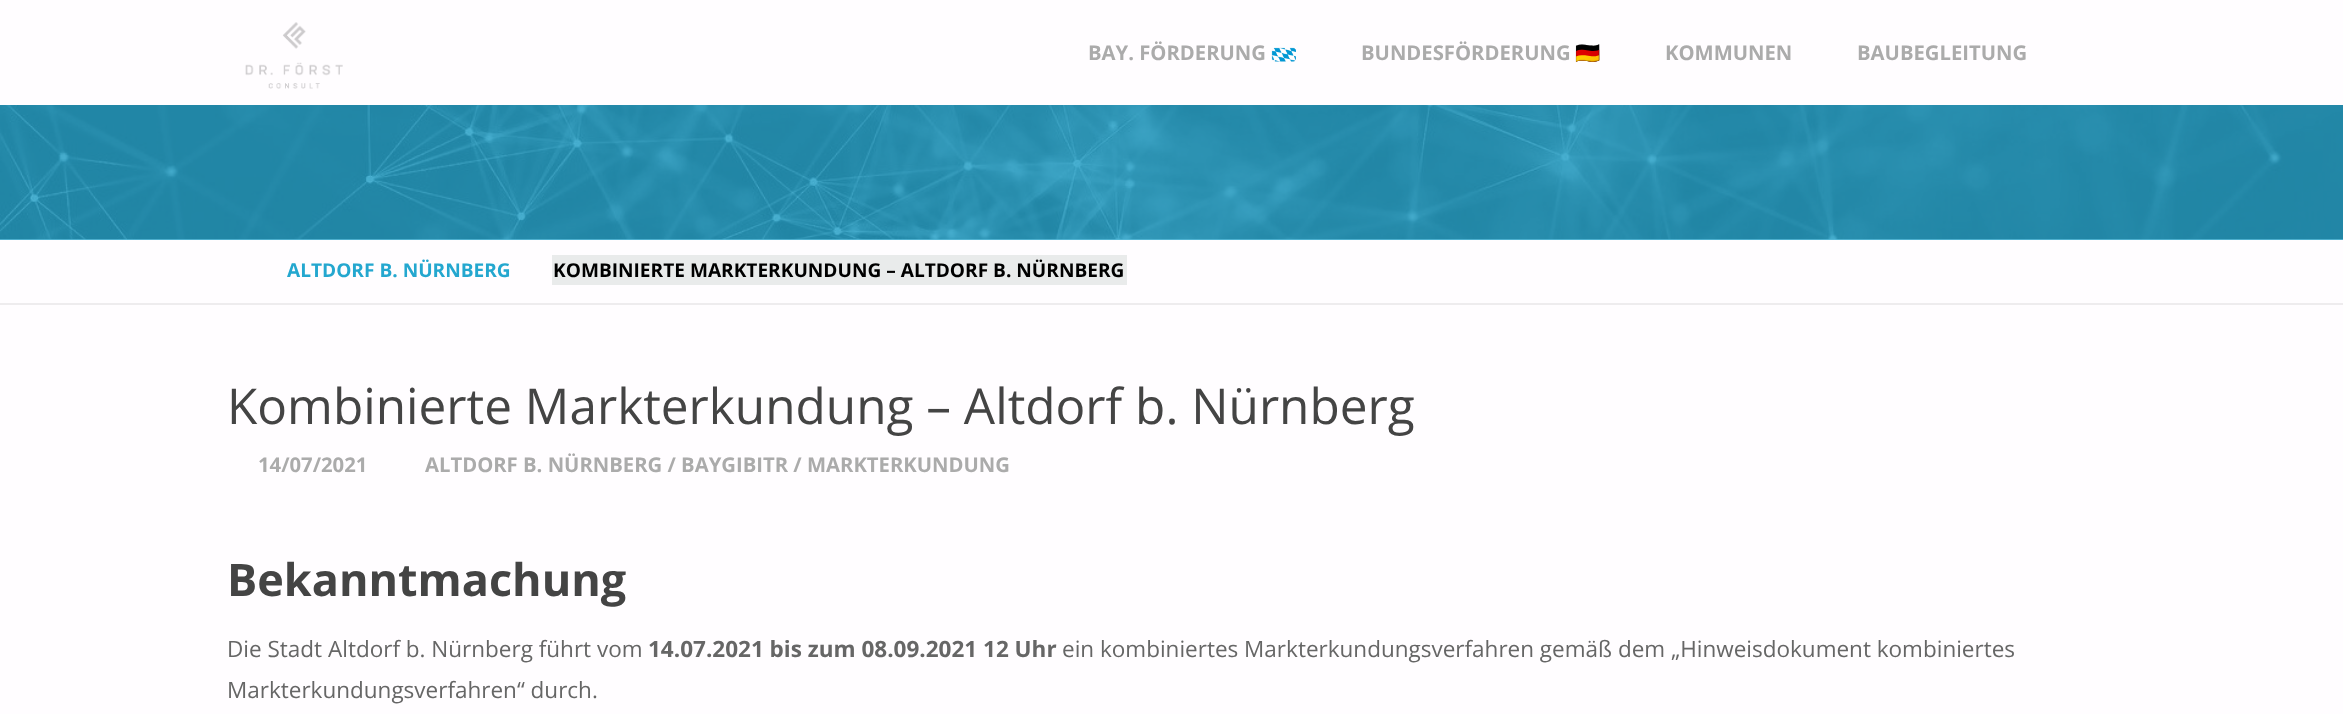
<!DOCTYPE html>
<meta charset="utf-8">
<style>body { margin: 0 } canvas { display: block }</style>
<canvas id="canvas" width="2343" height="714"></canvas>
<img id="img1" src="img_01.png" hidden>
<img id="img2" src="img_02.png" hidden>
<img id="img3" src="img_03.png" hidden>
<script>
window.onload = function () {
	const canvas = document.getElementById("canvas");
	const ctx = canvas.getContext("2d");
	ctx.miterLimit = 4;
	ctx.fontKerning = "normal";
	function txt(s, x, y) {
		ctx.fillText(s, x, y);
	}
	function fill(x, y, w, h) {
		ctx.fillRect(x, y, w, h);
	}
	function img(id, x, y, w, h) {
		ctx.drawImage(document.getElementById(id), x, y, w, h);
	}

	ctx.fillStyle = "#FFFDFF";
	fill(0, 0, 2343, 714);
	ctx.fillStyle = "#5BBDDB";
	fill(0, 239, 2343, 1);
	img("img1", 245, 22, 98, 67);
	img("img2", 1271, 47, 25, 15);
	img("img3", 0, 105, 2343, 135);
	ctx.fillStyle = "#EEECEE";
	fill(0, 303, 2343, 2);
	ctx.fillStyle = "#E9EBEB";
	fill(552, 255, 575, 30);
	ctx.font = "bold 20.25px Open Sans";
	ctx.fillStyle = "#ABABAB";
	txt("BAY. FÖRDERUNG", 1088, 60);
	txt("BUNDESFÖRDERUNG", 1361, 60);
	ctx.font = "bold 20.25px Noto Color Emoji";
	txt("🇩🇪", 1575, 60);
	ctx.font = "bold 20.25px Open Sans";
	txt("KOMMUNEN", 1665, 60);
	txt("BAUBEGLEITUNG", 1857, 60);
	ctx.font = "bold 19.1px Open Sans";
	ctx.fillStyle = "#24A7CF";
	txt("ALTDORF B. NÜRNBERG", 287, 277);
	ctx.fillStyle = "#000000";
	txt("KOMBINIERTE MARKTERKUNDUNG – ALTDORF B. NÜRNBERG", 553, 277);
	ctx.font = "49.5px Open Sans";
	ctx.fillStyle = "#444444";
	txt("Kombinierte Markterkundung – Altdorf b. Nürnberg", 227, 424);
	ctx.font = "bold 20.25px Open Sans";
	ctx.fillStyle = "#ABABAB";
	txt("14/07/2021", 258, 472);
	txt("ALTDORF B. NÜRNBERG / BAYGIBITR / MARKTERKUNDUNG", 425, 472);
	ctx.font = "bold 45px Open Sans";
	ctx.fillStyle = "#444444";
	txt("Bekanntmachung", 227, 596);
	ctx.font = "22.5px Open Sans";
	ctx.fillStyle = "#666666";
	txt("Die Stadt Altdorf b. Nürnberg führt vom", 227, 657);
	ctx.font = "bold 22.5px Open Sans";
	txt("14.07.2021 bis zum 08.09.2021 12 Uhr", 648, 657);
	ctx.font = "22.5px Open Sans";
	txt("ein kombiniertes Markterkundungsverfahren gemäß dem „Hinweisdokument kombiniertes", 1062, 657);
	txt("Markterkundungsverfahren“ durch.", 227, 698);
};
</script>
